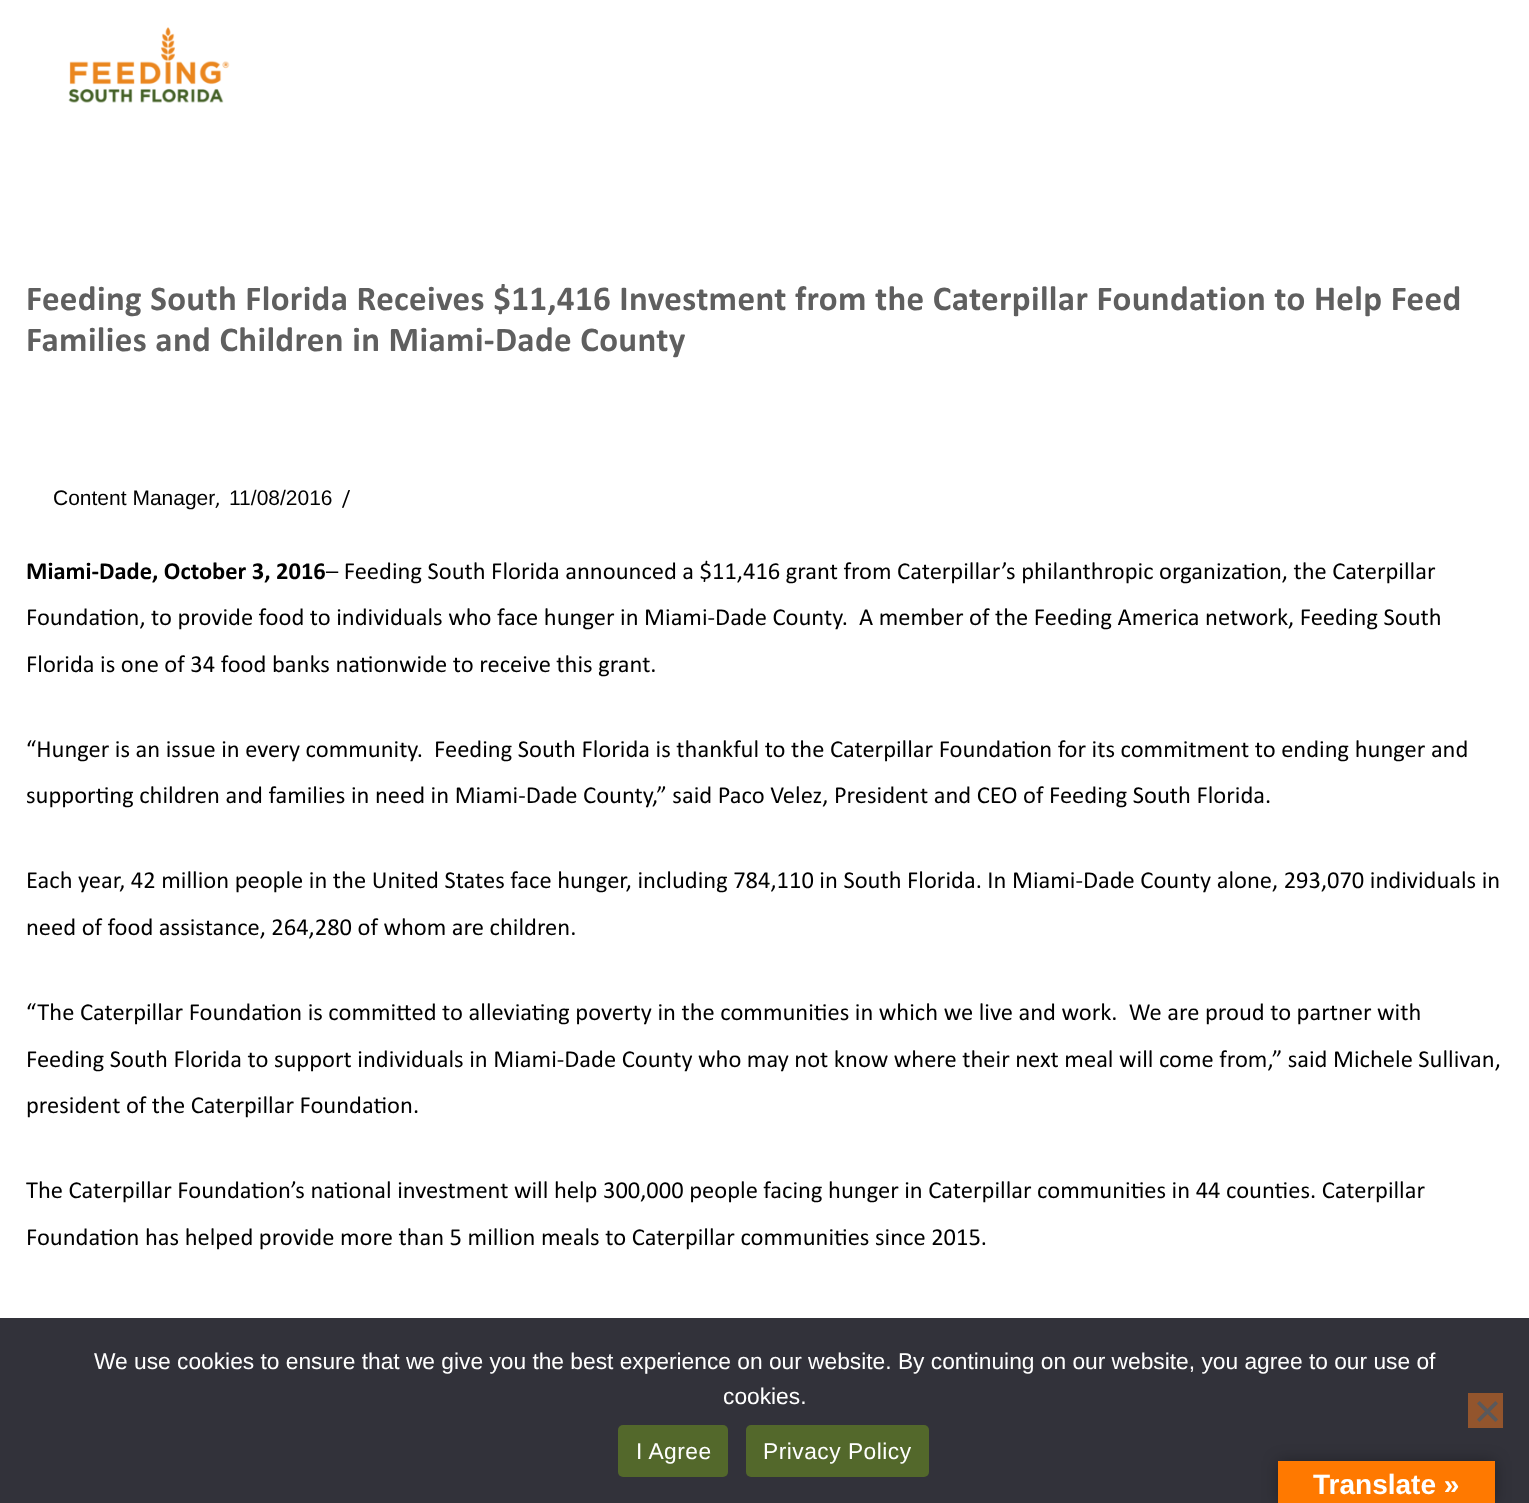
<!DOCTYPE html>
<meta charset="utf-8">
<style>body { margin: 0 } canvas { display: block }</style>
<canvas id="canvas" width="1529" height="1503"></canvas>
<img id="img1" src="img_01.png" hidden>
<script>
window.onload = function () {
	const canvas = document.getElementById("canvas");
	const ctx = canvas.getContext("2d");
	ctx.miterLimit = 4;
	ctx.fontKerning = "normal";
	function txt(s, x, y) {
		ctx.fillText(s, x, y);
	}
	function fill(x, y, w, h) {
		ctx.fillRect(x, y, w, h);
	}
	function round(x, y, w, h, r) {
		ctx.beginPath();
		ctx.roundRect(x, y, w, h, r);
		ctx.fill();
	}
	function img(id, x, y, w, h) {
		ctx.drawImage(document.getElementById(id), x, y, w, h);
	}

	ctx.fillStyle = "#FFFFFF";
	fill(0, 0, 1529, 1503);
	img("img1", 68, 27, 162, 76);
	ctx.fillStyle = "#32323A";
	fill(0, 1318, 1529, 185);
	ctx.fillStyle = "#93552D";
	fill(1468, 1393, 35, 35);
	ctx.fillStyle = "#59595D";
	ctx.beginPath();
	ctx.moveTo(1495.5, 1401);
	ctx.lineTo(1498, 1403.5);
	ctx.lineTo(1479.5, 1422);
	ctx.lineTo(1477, 1419.5);
	ctx.closePath();
	ctx.fill();
	ctx.beginPath();
	ctx.moveTo(1477, 1403.5);
	ctx.lineTo(1479.5, 1401);
	ctx.lineTo(1498, 1419.5);
	ctx.lineTo(1495.5, 1422);
	ctx.closePath();
	ctx.fill();
	ctx.fillStyle = "#53682B";
	round(618, 1425, 110, 52, 5);
	round(746, 1425, 183, 52, 5);
	ctx.fillStyle = "rgba(0, 0, 0, 0.3)";
	ctx.filter = "blur(8px)";
	ctx.beginPath();
	ctx.rect(1278, 1461, 217, 42);
	ctx.fill();
	ctx.filter = "none";
	ctx.fillStyle = "#FF7900";
	fill(1278, 1461, 217, 42);
	ctx.letterSpacing = "0.35px";
	ctx.font = "bold 35px Calibri";
	ctx.fillStyle = "#5F5F5F";
	txt("Feeding South Florida Receives $11,416 Investment from the Caterpillar Foundation to Help Feed", 26, 310);
	txt("Families and Children in Miami-Dade County", 26, 351);
	ctx.letterSpacing = "0px";
	ctx.font = "21px Liberation Sans";
	ctx.fillStyle = "#000000";
	txt("Content Manager", 53, 505);
	ctx.font = "21px Calibri";
	txt(",", 215, 505);
	ctx.font = "21px Liberation Sans";
	txt("11/08/2016", 229, 505);
	ctx.font = "21px Calibri";
	txt("/", 342, 505);
	ctx.font = "bold 24.5px Calibri";
	txt("Miami-Dade, October 3, 2016", 26, 579);
	ctx.font = "24.5px Calibri";
	txt("– Feeding South Florida announced a $11,416 grant from Caterpillar’s philanthropic organization, the Caterpillar", 326, 579);
	txt("Foundation, to provide food to individuals who face hunger in Miami-Dade County.  A member of the Feeding America network, Feeding South", 26, 625);
	txt("Florida is one of 34 food banks nationwide to receive this grant.", 26, 672);
	txt("“Hunger is an issue in every community.  Feeding South Florida is thankful to the Caterpillar Foundation for its commitment to ending hunger and", 26, 757);
	txt("supporting children and families in need in Miami-Dade County,” said Paco Velez, President and CEO of Feeding South Florida.", 26, 803);
	txt("Each year, 42 million people in the United States face hunger, including 784,110 in South Florida. In Miami-Dade County alone, 293,070 individuals in", 26, 888);
	txt("need of food assistance, 264,280 of whom are children.", 26, 935);
	txt("“The Caterpillar Foundation is committed to alleviating poverty in the communities in which we live and work.  We are proud to partner with", 26, 1020);
	txt("Feeding South Florida to support individuals in Miami-Dade County who may not know where their next meal will come from,” said Michele Sullivan,", 26, 1067);
	txt("president of the Caterpillar Foundation.", 26, 1113);
	txt("The Caterpillar Foundation’s national investment will help 300,000 people facing hunger in Caterpillar communities in 44 counties. Caterpillar", 26, 1198);
	txt("Foundation has helped provide more than 5 million meals to Caterpillar communities since 2015.", 26, 1245);
	ctx.font = "22.75px Liberation Sans";
	ctx.fillStyle = "#FFFFFF";
	txt("We use cookies to ensure that we give you the best experience on our website. By continuing on our website, you agree to our use of", 94, 1369);
	txt("cookies.", 723, 1404);
	ctx.letterSpacing = "0.5px";
	txt("I Agree", 636, 1459);
	txt("Privacy Policy", 763, 1459);
	ctx.letterSpacing = "0px";
	ctx.font = "bold 28px Liberation Sans";
	txt("Translate »", 1313, 1494);
};
</script>
